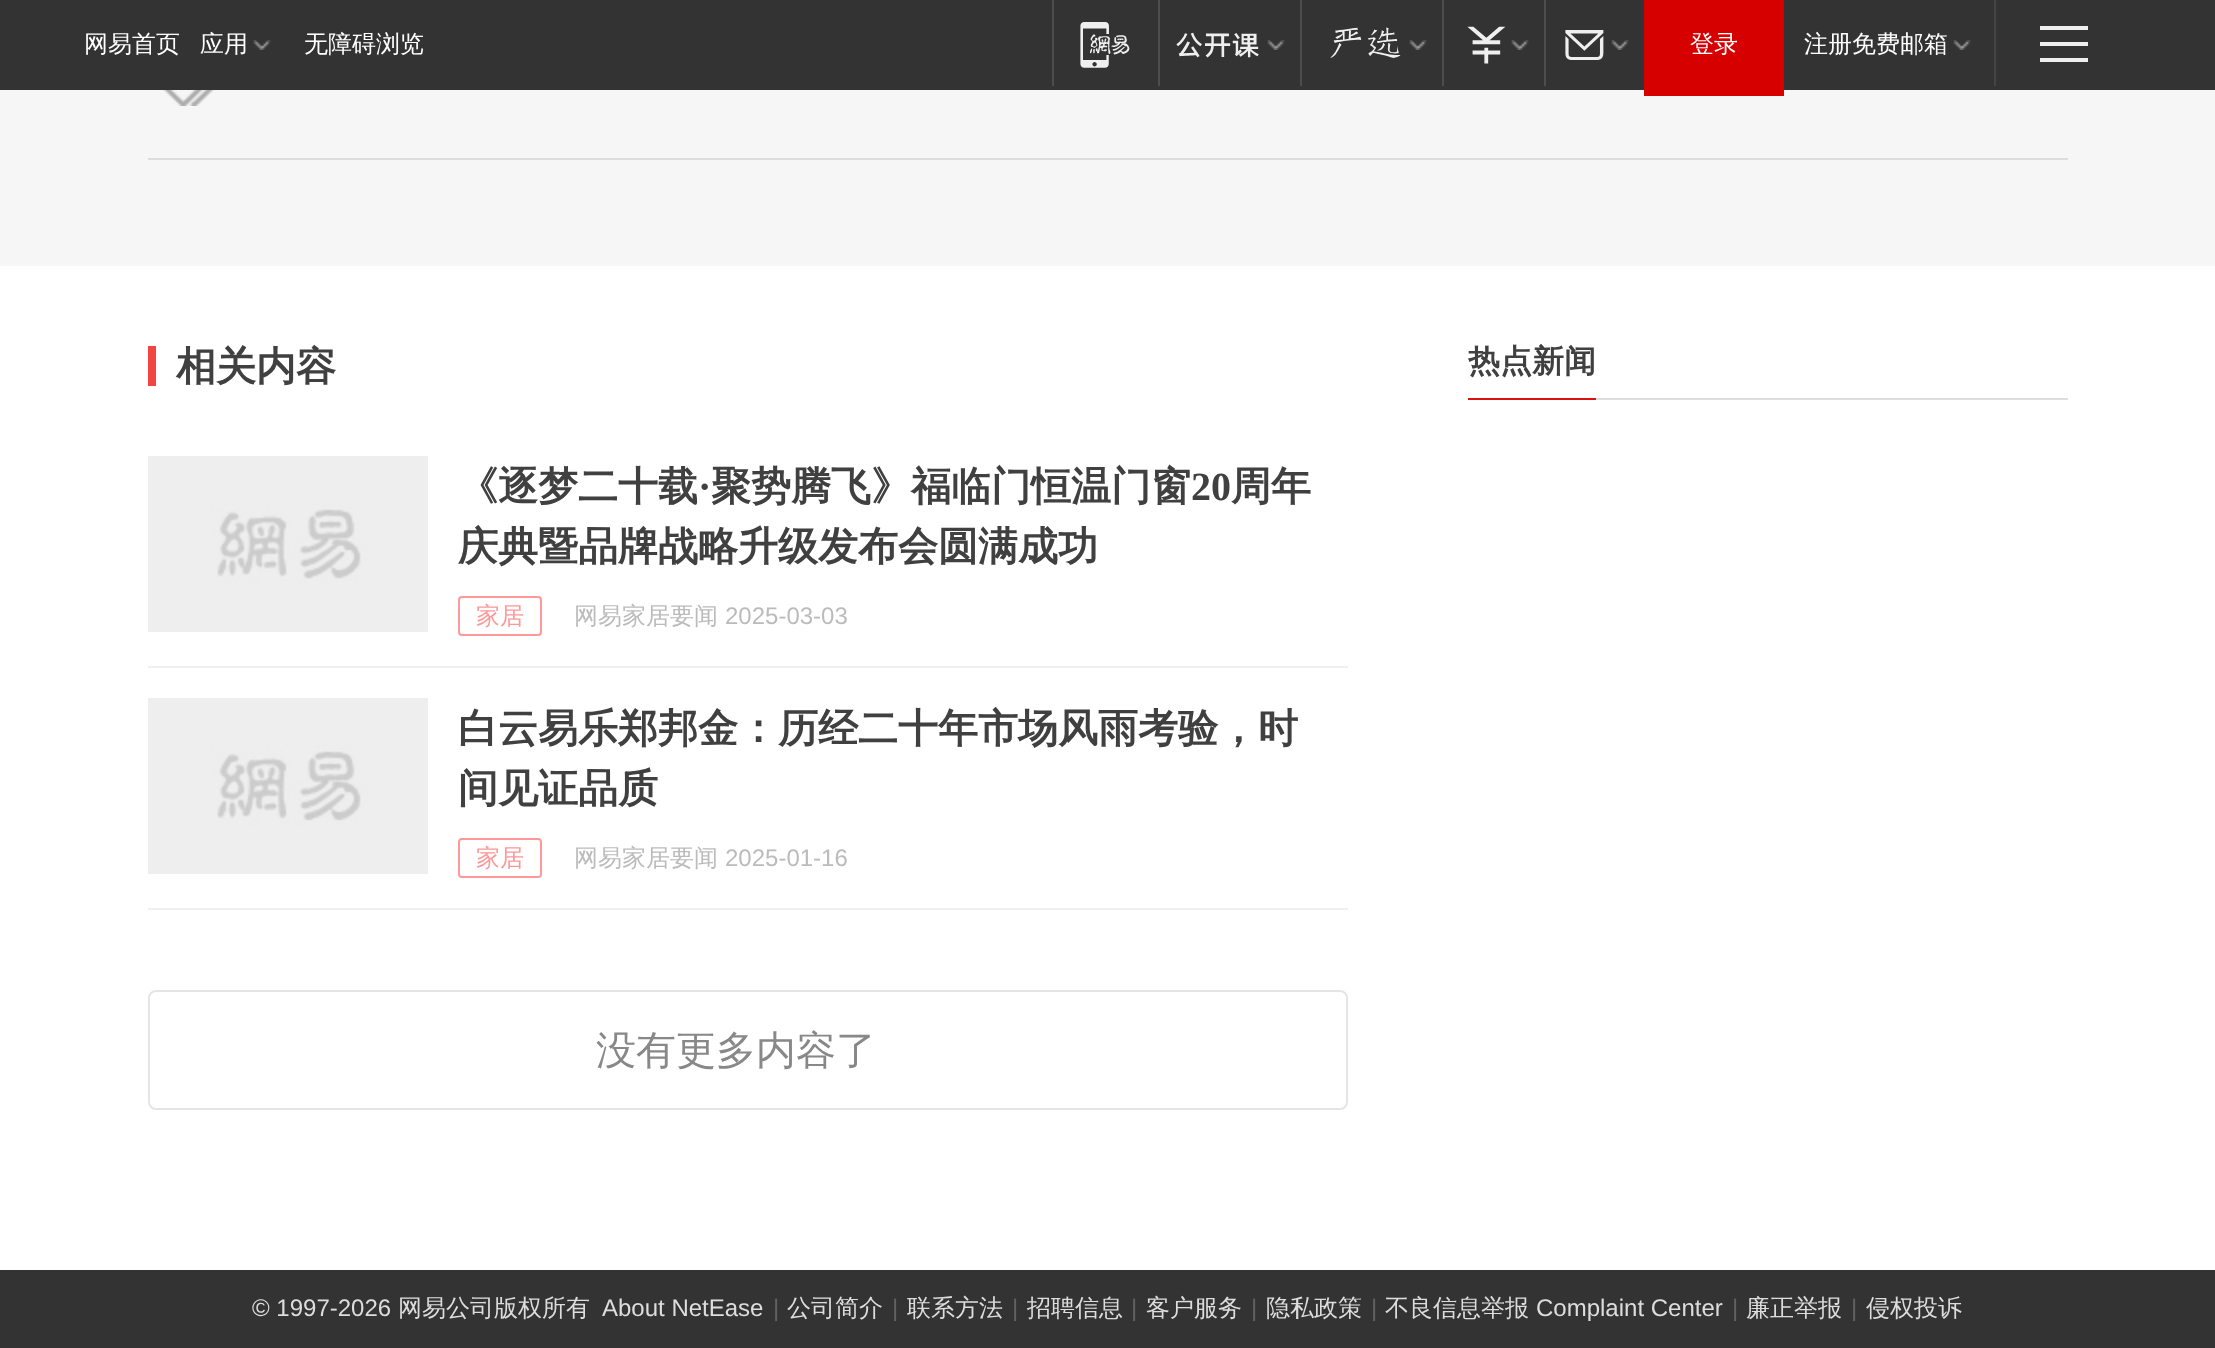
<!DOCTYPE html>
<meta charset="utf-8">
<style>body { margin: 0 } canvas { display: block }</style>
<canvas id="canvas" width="2215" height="1348"></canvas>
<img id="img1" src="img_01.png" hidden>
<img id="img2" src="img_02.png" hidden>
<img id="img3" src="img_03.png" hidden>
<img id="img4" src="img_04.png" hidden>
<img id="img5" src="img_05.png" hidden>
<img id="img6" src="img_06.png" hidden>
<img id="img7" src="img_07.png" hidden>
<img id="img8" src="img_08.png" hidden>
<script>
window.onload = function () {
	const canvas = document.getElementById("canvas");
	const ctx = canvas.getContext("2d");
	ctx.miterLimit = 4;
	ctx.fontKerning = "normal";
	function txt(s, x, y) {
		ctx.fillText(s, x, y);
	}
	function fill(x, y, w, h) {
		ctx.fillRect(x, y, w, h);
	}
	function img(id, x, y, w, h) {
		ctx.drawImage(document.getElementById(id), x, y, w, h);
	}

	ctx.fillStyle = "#FFFFFF";
	fill(0, 0, 2215, 1348);
	ctx.fillStyle = "#333333";
	fill(0, 0, 2215, 90);
	img("img1", 253, 40, 18, 10);
	ctx.fillStyle = "#4D4D4D";
	fill(1052, 0, 2, 86);
	img("img2", 1080, 22, 50, 46);
	fill(1158, 0, 2, 86);
	img("img3", 1176, 32, 83, 26);
	img("img1", 1267, 40, 18, 10);
	fill(1300, 0, 2, 86);
	img("img4", 1330, 27, 71, 31);
	img("img1", 1409, 40, 18, 10);
	fill(1442, 0, 2, 86);
	img("img5", 1467, 26, 39, 38);
	img("img1", 1511, 40, 18, 10);
	fill(1544, 0, 2, 86);
	img("img6", 1565, 30, 39, 30);
	img("img1", 1611, 40, 18, 10);
	ctx.fillStyle = "#F6F6F6";
	fill(0, 90, 2215, 176);
	ctx.fillStyle = "#D60000";
	fill(1644, 0, 140, 96);
	img("img1", 1953, 40, 18, 10);
	ctx.fillStyle = "#444444";
	fill(1994, 0, 2, 86);
	ctx.fillStyle = "#EFEFEF";
	fill(2040, 26, 48, 4);
	fill(2040, 42, 48, 4);
	fill(2040, 58, 48, 4);
	img("img7", 162, 90, 53, 16);
	ctx.fillStyle = "#DDDDDD";
	fill(148, 158, 1920, 2);
	ctx.fillStyle = "#F34540";
	fill(148, 346, 8, 40);
	ctx.fillStyle = "#F0F0F0";
	fill(148, 666, 1200, 2);
	img("img8", 148, 456, 280, 176);
	ctx.beginPath();
	ctx.roundRect(459, 597, 82, 38, 3);
	ctx.strokeStyle = "#FF9999";
	ctx.lineWidth = 2;
	ctx.stroke();
	fill(148, 908, 1200, 2);
	img("img8", 148, 698, 280, 176);
	ctx.beginPath();
	ctx.roundRect(459, 839, 82, 38, 3);
	ctx.stroke();
	ctx.beginPath();
	ctx.roundRect(149, 991, 1198, 118, 7);
	ctx.strokeStyle = "#E5E5E5";
	ctx.stroke();
	ctx.fillStyle = "#DDDDDD";
	fill(1596, 398, 472, 2);
	ctx.fillStyle = "#DB1011";
	fill(1468, 398, 128, 2);
	ctx.fillStyle = "#333333";
	fill(0, 1270, 2215, 78);
	ctx.font = "500 24px WenQuanYi Zen Hei";
	ctx.fillStyle = "#FFFFFF";
	txt("网易首页", 84, 52);
	txt("应用", 200, 52);
	txt("无障碍浏览", 304, 52);
	txt("登录", 1690, 52);
	txt("注册免费邮箱", 1804, 52);
	ctx.font = "bold 40px WenQuanYi Zen Hei";
	ctx.fillStyle = "#404040";
	txt("相关内容", 176, 380);
	txt("《逐梦二十载", 458, 500);
	ctx.font = "bold 40px Liberation Serif";
	txt("·", 698, 500);
	ctx.font = "bold 40px WenQuanYi Zen Hei";
	txt("聚势腾飞》福临门恒温门窗", 711, 500);
	ctx.font = "bold 40px Liberation Serif";
	txt("20", 1191, 500);
	ctx.font = "bold 40px WenQuanYi Zen Hei";
	txt("周年", 1231, 500);
	txt("庆典暨品牌战略升级发布会圆满成功", 458, 560);
	ctx.font = "500 24px WenQuanYi Zen Hei";
	ctx.fillStyle = "#FF9999";
	txt("家居", 476, 624);
	ctx.fillStyle = "#BBBBBB";
	txt("网易家居要闻", 574, 624);
	ctx.font = "24px Liberation Sans";
	txt("2025-03-03", 725, 624);
	ctx.font = "bold 40px WenQuanYi Zen Hei";
	ctx.fillStyle = "#404040";
	txt("白云易乐郑邦金：历经二十年市场风雨考验，时", 458, 742);
	txt("间见证品质", 458, 802);
	ctx.font = "500 24px WenQuanYi Zen Hei";
	ctx.fillStyle = "#FF9999";
	txt("家居", 476, 866);
	ctx.fillStyle = "#BBBBBB";
	txt("网易家居要闻", 574, 866);
	ctx.font = "24px Liberation Sans";
	txt("2025-01-16", 725, 866);
	ctx.font = "500 40px WenQuanYi Zen Hei";
	ctx.fillStyle = "#888888";
	txt("没有更多内容了", 596, 1064);
	ctx.font = "bold 32px WenQuanYi Zen Hei";
	ctx.fillStyle = "#404040";
	txt("热点新闻", 1468, 372);
	ctx.font = "24px Liberation Sans";
	ctx.fillStyle = "#DDDDDD";
	txt("© 1997-2026", 252, 1316);
	ctx.font = "500 24px WenQuanYi Zen Hei";
	txt("网易公司版权所有", 398, 1316);
	ctx.font = "24px Liberation Sans";
	txt("About NetEase", 602, 1316);
	ctx.fillStyle = "#616161";
	txt("|", 773, 1316);
	ctx.font = "500 24px WenQuanYi Zen Hei";
	ctx.fillStyle = "#DDDDDD";
	txt("公司简介", 787, 1316);
	ctx.font = "24px Liberation Sans";
	ctx.fillStyle = "#616161";
	txt("|", 892, 1316);
	ctx.font = "500 24px WenQuanYi Zen Hei";
	ctx.fillStyle = "#DDDDDD";
	txt("联系方法", 907, 1316);
	ctx.font = "24px Liberation Sans";
	ctx.fillStyle = "#616161";
	txt("|", 1012, 1316);
	ctx.font = "500 24px WenQuanYi Zen Hei";
	ctx.fillStyle = "#DDDDDD";
	txt("招聘信息", 1027, 1316);
	ctx.font = "24px Liberation Sans";
	ctx.fillStyle = "#616161";
	txt("|", 1131, 1316);
	ctx.font = "500 24px WenQuanYi Zen Hei";
	ctx.fillStyle = "#DDDDDD";
	txt("客户服务", 1146, 1316);
	ctx.font = "24px Liberation Sans";
	ctx.fillStyle = "#616161";
	txt("|", 1251, 1316);
	ctx.font = "500 24px WenQuanYi Zen Hei";
	ctx.fillStyle = "#DDDDDD";
	txt("隐私政策", 1266, 1316);
	ctx.font = "24px Liberation Sans";
	ctx.fillStyle = "#616161";
	txt("|", 1371, 1316);
	ctx.font = "500 24px WenQuanYi Zen Hei";
	ctx.fillStyle = "#DDDDDD";
	txt("不良信息举报", 1385, 1316);
	ctx.font = "24px Liberation Sans";
	txt("Complaint Center", 1536, 1316);
	ctx.fillStyle = "#616161";
	txt("|", 1732, 1316);
	ctx.font = "500 24px WenQuanYi Zen Hei";
	ctx.fillStyle = "#DDDDDD";
	txt("廉正举报", 1746, 1316);
	ctx.font = "24px Liberation Sans";
	ctx.fillStyle = "#616161";
	txt("|", 1851, 1316);
	ctx.font = "500 24px WenQuanYi Zen Hei";
	ctx.fillStyle = "#DDDDDD";
	txt("侵权投诉", 1866, 1316);
};
</script>
